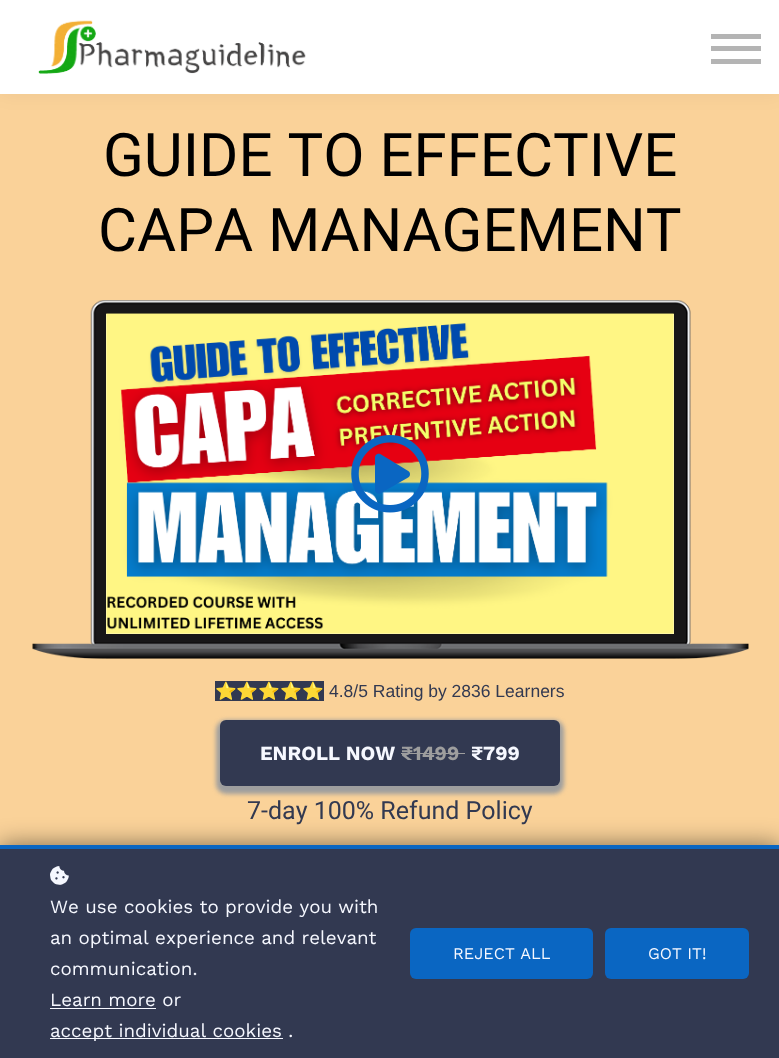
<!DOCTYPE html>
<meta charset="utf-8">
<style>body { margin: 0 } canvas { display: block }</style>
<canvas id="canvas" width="779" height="1058"></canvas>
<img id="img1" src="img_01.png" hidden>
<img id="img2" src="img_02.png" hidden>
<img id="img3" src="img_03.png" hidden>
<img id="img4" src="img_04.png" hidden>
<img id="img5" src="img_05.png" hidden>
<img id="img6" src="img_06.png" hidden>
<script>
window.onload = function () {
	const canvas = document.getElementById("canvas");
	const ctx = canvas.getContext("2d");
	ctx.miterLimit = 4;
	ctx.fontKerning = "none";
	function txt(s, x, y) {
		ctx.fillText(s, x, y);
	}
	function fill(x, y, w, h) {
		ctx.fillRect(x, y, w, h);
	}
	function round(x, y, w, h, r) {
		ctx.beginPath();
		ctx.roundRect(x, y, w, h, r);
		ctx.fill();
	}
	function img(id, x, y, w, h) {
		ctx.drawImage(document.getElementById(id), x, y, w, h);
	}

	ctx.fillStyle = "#FAD299";
	fill(0, 0, 779, 1058);
	ctx.fillStyle = "rgba(0, 0, 0, 0.05)";
	ctx.filter = "blur(9.5px)";
	ctx.beginPath();
	ctx.rect(0, 0, 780, 94);
	ctx.fill();
	ctx.filter = "none";
	ctx.fillStyle = "#FFFFFF";
	fill(0, 0, 779, 94);
	img("img1", 38, 20, 268, 54);
	ctx.fillStyle = "#B4B4B4";
	fill(711, 59, 50, 5);
	fill(711, 34, 50, 5);
	fill(711, 46, 50, 5);
	img("img2", 32, 300, 717, 359);
	img("img3", 106, 313, 568, 1);
	ctx.fillStyle = "#FFFFFF";
	fill(106, 314, 568, 320);
	img("img4", 106, 313, 568, 321);
	img("img5", 351, 435, 78, 78);
	ctx.fillStyle = "#323951";
	fill(215, 681, 109, 20);
	ctx.fillStyle = "#9E9E9E";
	ctx.filter = "blur(2px)";
	ctx.beginPath();
	ctx.roundRect(216, 720, 348, 74, 10);
	ctx.fill();
	ctx.filter = "none";
	ctx.fillStyle = "#323951";
	round(220, 720, 340, 66, 6);
	ctx.fillStyle = "#9E9E9E";
	fill(401, 753, 64, 1);
	ctx.fillStyle = "rgba(0, 0, 0, 0.5)";
	ctx.filter = "blur(12.5px)";
	ctx.beginPath();
	ctx.rect(0, 845, 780, 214);
	ctx.fill();
	ctx.filter = "none";
	ctx.fillStyle = "#323951";
	fill(0, 849, 779, 209);
	ctx.fillStyle = "#0A66C2";
	fill(0, 845, 779, 4);
	img("img6", 50, 866, 19, 19);
	ctx.fillStyle = "#F6F8FF";
	fill(50, 1008, 106, 1);
	fill(50, 1038, 233, 1);
	ctx.fillStyle = "#0A66C2";
	round(410, 928, 183, 51, 6);
	round(605, 928, 144, 51, 6);
	ctx.font = "60px Roboto";
	ctx.fillStyle = "#000000";
	txt("GUIDE TO EFFECTIVE", 103, 176);
	txt("CAPA MANAGEMENT", 98, 251);
	ctx.font = "17.5px Noto Color Emoji";
	ctx.fillStyle = "#162866";
	txt("⭐⭐⭐⭐⭐", 215, 697);
	ctx.font = "17.5px Liberation Sans";
	ctx.fillStyle = "#323951";
	txt("4.8/5 Rating by 2836 Learners", 329, 697);
	ctx.font = "bold 20px Work Sans";
	ctx.fillStyle = "#F6F8FF";
	txt("ENROLL NOW", 260, 760);
	ctx.fillStyle = "#9E9E9E";
	txt("₹1499", 401, 760);
	ctx.fillStyle = "#F6F8FF";
	txt("₹799", 471, 760);
	ctx.font = "25px Roboto";
	ctx.fillStyle = "#323951";
	txt("7-day 100% Refund Policy", 247, 819);
	ctx.font = "18.75px Work Sans";
	ctx.fillStyle = "#F6F8FF";
	txt("We use cookies to provide you with", 50, 913);
	txt("an optimal experience and relevant", 50, 944);
	txt("communication.", 50, 975);
	txt("Learn more or", 50, 1006);
	txt("accept individual cookies .", 50, 1037);
	ctx.font = "16.25px Work Sans";
	txt("REJECT ALL", 453, 959);
	txt("GOT IT!", 648, 959);
};
</script>
